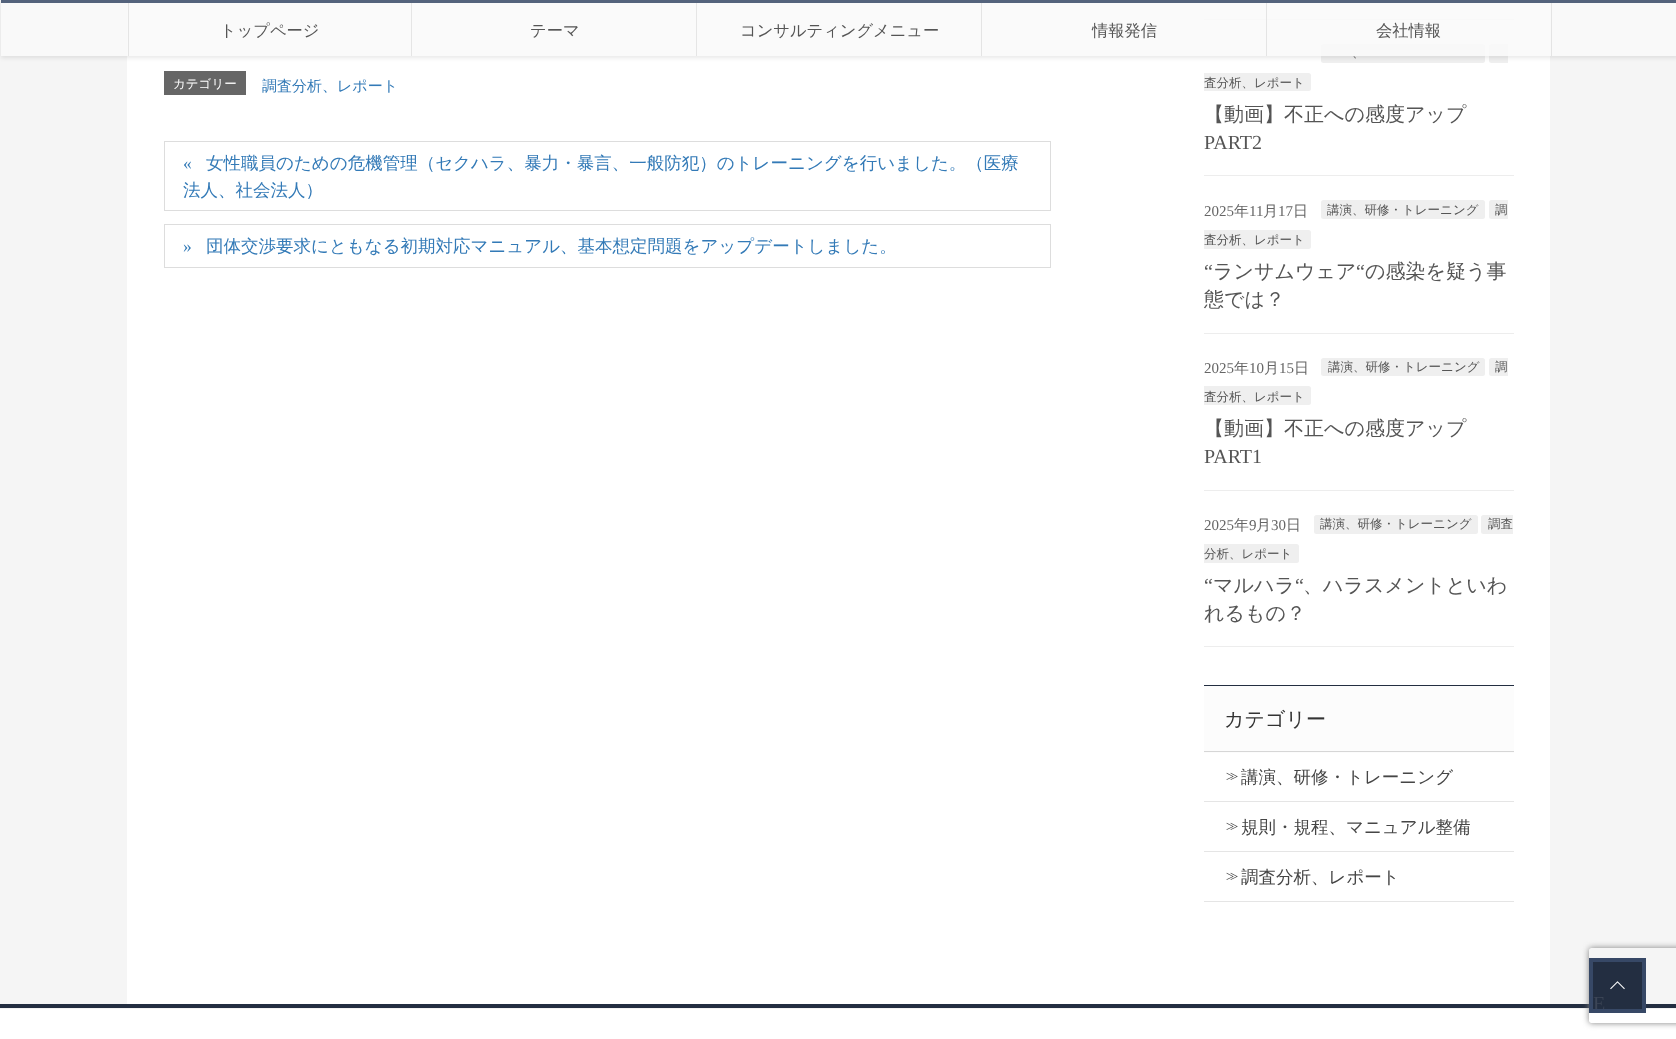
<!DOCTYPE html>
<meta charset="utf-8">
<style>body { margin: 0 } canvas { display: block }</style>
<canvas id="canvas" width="1676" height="1039"></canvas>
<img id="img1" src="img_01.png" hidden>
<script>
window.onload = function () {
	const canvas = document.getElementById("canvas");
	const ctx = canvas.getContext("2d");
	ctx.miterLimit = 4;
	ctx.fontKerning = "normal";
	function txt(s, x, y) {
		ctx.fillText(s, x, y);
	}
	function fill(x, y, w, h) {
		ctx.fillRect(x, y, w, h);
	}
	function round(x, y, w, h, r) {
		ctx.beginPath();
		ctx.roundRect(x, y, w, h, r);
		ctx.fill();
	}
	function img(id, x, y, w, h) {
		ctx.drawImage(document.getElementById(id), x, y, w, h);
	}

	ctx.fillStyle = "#FFFFFF";
	fill(0, 0, 1676, 1039);
	ctx.fillStyle = "#F5F5F5";
	fill(0, 0, 1676, 1004);
	ctx.fillStyle = "#FFFFFF";
	fill(127, 3, 1423, 1001);
	ctx.fillStyle = "#EDEDED";
	fill(1204, 19, 310, 1);
	ctx.fillStyle = "#EFEFEF";
	round(1321, 44, 164, 19, 2.5);
	ctx.beginPath();
	ctx.roundRect(1489, 44, 19, 19, [2.5, 0, 0, 2.5]);
	ctx.fill();
	ctx.save();
	ctx.beginPath();
	ctx.moveTo(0, 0);
	ctx.lineTo(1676, 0);
	ctx.lineTo(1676, 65);
	ctx.lineTo(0, 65);
	ctx.closePath();
	ctx.moveTo(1, 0);
	ctx.lineTo(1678, 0);
	ctx.lineTo(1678, 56);
	ctx.lineTo(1, 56);
	ctx.closePath();
	ctx.clip("evenodd");
	ctx.fillStyle = "rgba(0, 0, 0, 0.09)";
	ctx.filter = "blur(2px)";
	ctx.beginPath();
	ctx.rect(1, 1, 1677, 57);
	ctx.fill();
	ctx.filter = "none";
	ctx.restore();
	ctx.fillStyle = "rgba(249, 249, 249, 0.85)";
	fill(1, 3, 1675, 53);
	ctx.fillStyle = "#54637C";
	fill(1, 0, 1675, 3);
	ctx.fillStyle = "#E5E5E5";
	fill(128, 3, 1, 53);
	fill(411, 3, 1, 53);
	fill(696, 3, 1, 53);
	ctx.fillStyle = "#E4E4E4";
	fill(981, 3, 1, 53);
	fill(1551, 3, 1, 53);
	fill(1266, 3, 1, 53);
	ctx.fillStyle = "#666666";
	fill(164, 71, 82, 24);
	ctx.strokeStyle = "#DDDDDD";
	ctx.strokeRect(164.5, 141.5, 886, 69);
	ctx.strokeRect(164.5, 224.5, 886, 43);
	ctx.fillStyle = "#EDEDED";
	fill(1204, 175, 310, 1);
	ctx.fillStyle = "#EFEFEF";
	ctx.beginPath();
	ctx.roundRect(1204, 73, 107, 18, [0, 2.5, 2.5, 0]);
	ctx.fill();
	ctx.fillStyle = "#EDEDED";
	fill(1204, 333, 310, 1);
	ctx.fillStyle = "#EFEFEF";
	round(1321, 200, 164, 19, 2.5);
	ctx.beginPath();
	ctx.roundRect(1489, 200, 19, 19, [2.5, 0, 0, 2.5]);
	ctx.fill();
	ctx.beginPath();
	ctx.roundRect(1204, 230, 107, 19, [0, 2.5, 2.5, 0]);
	ctx.fill();
	ctx.fillStyle = "#EDEDED";
	fill(1204, 490, 310, 1);
	ctx.fillStyle = "#EFEFEF";
	round(1321, 358, 164, 18, 2.5);
	ctx.beginPath();
	ctx.roundRect(1489, 358, 19, 18, [2.5, 0, 0, 2.5]);
	ctx.fill();
	ctx.beginPath();
	ctx.roundRect(1204, 386, 107, 19, [0, 2.5, 2.5, 0]);
	ctx.fill();
	ctx.fillStyle = "#EDEDED";
	fill(1204, 646, 310, 1);
	ctx.fillStyle = "#EFEFEF";
	round(1314, 515, 164, 19, 2.5);
	ctx.beginPath();
	ctx.roundRect(1481, 515, 32, 19, [2.5, 0, 0, 2.5]);
	ctx.fill();
	ctx.beginPath();
	ctx.roundRect(1204, 544, 95, 19, [0, 2.5, 2.5, 0]);
	ctx.fill();
	ctx.fillStyle = "#FCFCFC";
	fill(1204, 686, 310, 67);
	ctx.fillStyle = "#232E41";
	fill(1204, 685, 310, 1);
	ctx.fillStyle = "#D6D6D6";
	fill(1204, 751, 310, 1);
	ctx.fillStyle = "#E5E5E5";
	fill(1204, 801, 310, 1);
	fill(1204, 851, 310, 1);
	fill(1204, 901, 310, 1);
	ctx.fillStyle = "#232E41";
	fill(0, 1004, 1676, 4);
	ctx.fillStyle = "#F2F2F2";
	fill(0, 1008, 1676, 1);
	ctx.save();
	ctx.beginPath();
	ctx.moveTo(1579, 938);
	ctx.lineTo(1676, 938);
	ctx.lineTo(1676, 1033);
	ctx.lineTo(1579, 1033);
	ctx.closePath();
	ctx.moveTo(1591.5, 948);
	ctx.lineTo(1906.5, 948);
	ctx.bezierCurveTo(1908, 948, 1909, 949, 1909, 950.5);
	ctx.lineTo(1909, 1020.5);
	ctx.bezierCurveTo(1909, 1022, 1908, 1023, 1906.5, 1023);
	ctx.lineTo(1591.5, 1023);
	ctx.bezierCurveTo(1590, 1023, 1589, 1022, 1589, 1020.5);
	ctx.lineTo(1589, 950.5);
	ctx.bezierCurveTo(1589, 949, 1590, 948, 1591.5, 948);
	ctx.closePath();
	ctx.clip("evenodd");
	ctx.fillStyle = "#808080";
	ctx.filter = "blur(3px)";
	ctx.beginPath();
	ctx.roundRect(1589, 948, 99, 75, 2.5);
	ctx.fill();
	ctx.filter = "none";
	ctx.restore();
	ctx.fillStyle = "#232E41";
	fill(1593, 962, 49, 47);
	img("img1", 1610, 981, 15, 9);
	ctx.font = "500 16.25px WenQuanYi Zen Hei";
	ctx.fillStyle = "#555555";
	txt("トップページ", 220, 36);
	txt("テーマ", 530, 36);
	txt("コンサルティングメニュー", 740, 36);
	txt("情報発信", 1092, 36);
	txt("会社情報", 1376, 36);
	ctx.font = "500 12.5px WenQuanYi Zen Hei";
	ctx.fillStyle = "#FFFFFF";
	txt("カテゴリー", 173, 88);
	ctx.font = "500 15px WenQuanYi Zen Hei";
	ctx.fillStyle = "#337AB7";
	txt("調査分析、レポート", 262, 91);
	ctx.font = "17.5px Liberation Serif";
	txt("«", 183, 169);
	ctx.font = "500 17.5px WenQuanYi Zen Hei";
	txt("女性職員のための危機管理（セクハラ、暴力・暴言、一般防犯）のトレーニングを行いました。（医療", 206, 169);
	txt("法人、社会法人）", 183, 196);
	ctx.font = "17.5px Liberation Serif";
	txt("»", 183, 252);
	ctx.font = "500 17.5px WenQuanYi Zen Hei";
	txt("団体交渉要求にともなる初期対応マニュアル、基本想定問題をアップデートしました。", 206, 252);
	ctx.font = "500 12.5px WenQuanYi Zen Hei";
	ctx.fillStyle = "#555555";
	txt("、", 1352, 57);
	txt("査分析、レポート", 1204, 87);
	ctx.font = "500 20px WenQuanYi Zen Hei";
	txt("【動画】不正への感度アップ", 1204, 121);
	ctx.font = "20px Liberation Serif";
	txt("PART2", 1204, 149);
	ctx.font = "15px Liberation Serif";
	ctx.fillStyle = "#666666";
	txt("2025", 1204, 216);
	ctx.font = "500 15px WenQuanYi Zen Hei";
	txt("年", 1234, 216);
	ctx.font = "15px Liberation Serif";
	txt("11", 1249, 216);
	ctx.font = "500 15px WenQuanYi Zen Hei";
	txt("月", 1263, 216);
	ctx.font = "15px Liberation Serif";
	txt("17", 1278, 216);
	ctx.font = "500 15px WenQuanYi Zen Hei";
	txt("日", 1293, 216);
	ctx.font = "500 12.5px WenQuanYi Zen Hei";
	ctx.fillStyle = "#555555";
	txt("講演、研修・トレーニング", 1327, 214);
	txt("調", 1495, 214);
	txt("査分析、レポート", 1204, 244);
	ctx.font = "20px Liberation Serif";
	txt("“", 1204, 278);
	ctx.font = "500 20px WenQuanYi Zen Hei";
	txt("ランサムウェア", 1213, 278);
	ctx.font = "20px Liberation Serif";
	txt("“", 1356, 278);
	ctx.font = "500 20px WenQuanYi Zen Hei";
	txt("の感染を疑う事", 1365, 278);
	txt("態では？", 1204, 306);
	ctx.font = "15px Liberation Serif";
	ctx.fillStyle = "#666666";
	txt("2025", 1204, 373);
	ctx.font = "500 15px WenQuanYi Zen Hei";
	txt("年", 1234, 373);
	ctx.font = "15px Liberation Serif";
	txt("10", 1249, 373);
	ctx.font = "500 15px WenQuanYi Zen Hei";
	txt("月", 1264, 373);
	ctx.font = "15px Liberation Serif";
	txt("15", 1279, 373);
	ctx.font = "500 15px WenQuanYi Zen Hei";
	txt("日", 1294, 373);
	ctx.font = "500 12.5px WenQuanYi Zen Hei";
	ctx.fillStyle = "#555555";
	txt("講演、研修・トレーニング", 1328, 371);
	txt("調", 1495, 371);
	txt("査分析、レポート", 1204, 401);
	ctx.font = "500 20px WenQuanYi Zen Hei";
	txt("【動画】不正への感度アップ", 1204, 435);
	ctx.font = "20px Liberation Serif";
	txt("PART1", 1204, 463);
	ctx.font = "15px Liberation Serif";
	ctx.fillStyle = "#666666";
	txt("2025", 1204, 530);
	ctx.font = "500 15px WenQuanYi Zen Hei";
	txt("年", 1234, 530);
	ctx.font = "15px Liberation Serif";
	txt("9", 1249, 530);
	ctx.font = "500 15px WenQuanYi Zen Hei";
	txt("月", 1256, 530);
	ctx.font = "15px Liberation Serif";
	txt("30", 1271, 530);
	ctx.font = "500 15px WenQuanYi Zen Hei";
	txt("日", 1286, 530);
	ctx.font = "500 12.5px WenQuanYi Zen Hei";
	ctx.fillStyle = "#555555";
	txt("講演、研修・トレーニング", 1320, 528);
	txt("調査", 1488, 528);
	txt("分析、レポート", 1204, 558);
	ctx.font = "20px Liberation Serif";
	txt("“", 1204, 592);
	ctx.font = "500 20px WenQuanYi Zen Hei";
	txt("マルハラ", 1213, 592);
	ctx.font = "20px Liberation Serif";
	txt("“", 1295, 592);
	ctx.font = "500 20px WenQuanYi Zen Hei";
	txt("、ハラスメントといわ", 1303, 592);
	txt("れるもの？", 1204, 620);
	ctx.fillStyle = "#333333";
	txt("カテゴリー", 1224, 726);
	ctx.font = "500 12.5px WenQuanYi Zen Hei";
	ctx.fillStyle = "#464646";
	txt("≫", 1226, 780);
	ctx.font = "500 17.5px WenQuanYi Zen Hei";
	txt("講演、研修・トレーニング", 1241, 783);
	ctx.font = "500 12.5px WenQuanYi Zen Hei";
	txt("≫", 1226, 830);
	ctx.font = "500 17.5px WenQuanYi Zen Hei";
	txt("規則・規程、マニュアル整備", 1241, 833);
	ctx.font = "500 12.5px WenQuanYi Zen Hei";
	txt("≫", 1226, 880);
	ctx.font = "500 17.5px WenQuanYi Zen Hei";
	txt("調査分析、レポート", 1241, 883);
	ctx.font = "20px Liberation Serif";
	ctx.fillStyle = "#3C4556";
	txt("E", 1593, 1010);
	ctx.strokeStyle = "#374866";
	ctx.lineWidth = 4;
	ctx.strokeRect(1591, 960, 53, 51);
};
</script>
